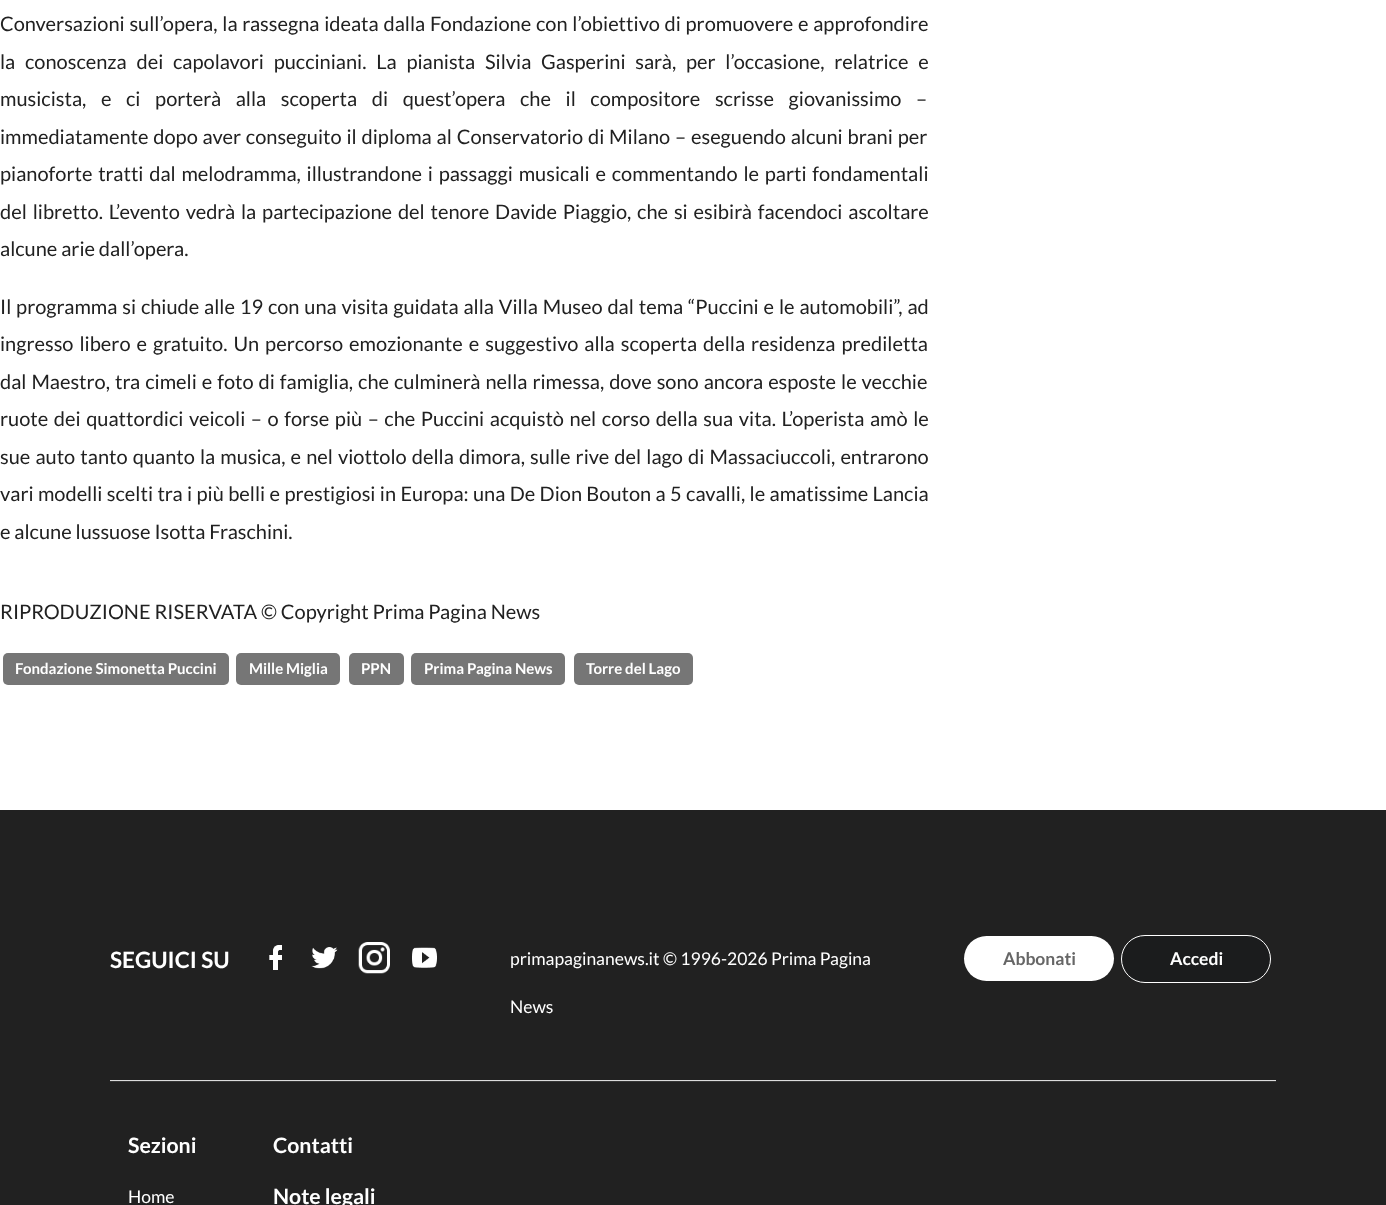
<!DOCTYPE html>
<meta charset="utf-8">
<style>body { margin: 0 } canvas { display: block }</style>
<canvas id="canvas" width="1386" height="1205"></canvas>
<img id="img1" src="img_01.png" hidden>
<img id="img2" src="img_02.png" hidden>
<img id="img3" src="img_03.png" hidden>
<img id="img4" src="img_04.png" hidden>
<script>
window.onload = function () {
	const canvas = document.getElementById("canvas");
	const ctx = canvas.getContext("2d");
	ctx.miterLimit = 4;
	ctx.fontKerning = "normal";
	function txt(s, x, y) {
		ctx.fillText(s, x, y);
	}
	function fill(x, y, w, h) {
		ctx.fillRect(x, y, w, h);
	}
	function round(x, y, w, h, r) {
		ctx.beginPath();
		ctx.roundRect(x, y, w, h, r);
		ctx.fill();
	}
	function img(id, x, y, w, h) {
		ctx.drawImage(document.getElementById(id), x, y, w, h);
	}

	ctx.fillStyle = "#FFFFFF";
	fill(0, 0, 1386, 1205);
	ctx.fillStyle = "#767676";
	round(3, 653, 226, 32, 5);
	round(236, 653, 104, 32, 5);
	round(349, 653, 55, 32, 5);
	round(411, 653, 154, 32, 5);
	round(574, 653, 119, 32, 5);
	ctx.fillStyle = "#212121";
	fill(0, 810, 1386, 395);
	img("img1", 269, 945, 13, 25);
	img("img2", 311, 947, 27, 22);
	img("img3", 358, 942, 32, 32);
	img("img4", 412, 947, 25, 21);
	ctx.fillStyle = "#FFFFFF";
	round(964, 936, 150, 45, 22.5);
	ctx.fillStyle = "#1B1C1D";
	ctx.beginPath();
	ctx.roundRect(1121.5, 935.5, 149, 47, 23.5);
	ctx.fill();
	ctx.strokeStyle = "#FFFFFF";
	ctx.stroke();
	ctx.fillStyle = "#DDDDDD";
	fill(110, 1080, 1166, 1);
	ctx.fillStyle = "#373737";
	fill(110, 1081, 1166, 1);
	ctx.wordSpacing = "0.9px";
	ctx.font = "20px Lato";
	ctx.fillStyle = "#212121";
	txt("Conversazioni sull’opera, la rassegna ideata dalla Fondazione con l’obiettivo di promuovere e approfondire", 0, 31);
	ctx.wordSpacing = "5.9px";
	txt("la conoscenza dei capolavori pucciniani. La pianista Silvia Gasperini sarà, per l’occasione, relatrice e", 0, 69);
	ctx.wordSpacing = "10.75px";
	txt("musicista, e ci porterà alla scoperta di quest’opera che il compositore scrisse giovanissimo –", 0, 106);
	ctx.wordSpacing = "1px";
	txt("immediatamente dopo aver conseguito il diploma al Conservatorio di Milano – eseguendo alcuni brani per", 0, 144);
	ctx.wordSpacing = "1.9px";
	txt("pianoforte tratti dal melodramma, illustrandone i passaggi musicali e commentando le parti fondamentali", 0, 181);
	ctx.wordSpacing = "2px";
	txt("del libretto. L’evento vedrà la partecipazione del tenore Davide Piaggio, che si esibirà facendoci ascoltare", 0, 219);
	ctx.wordSpacing = "0px";
	txt("alcune arie dall’opera.", 0, 256);
	ctx.wordSpacing = "1px";
	txt("Il programma si chiude alle 19 con una visita guidata alla Villa Museo dal tema “Puccini e le automobili”, ad", 0, 314);
	ctx.wordSpacing = "2.1px";
	txt("ingresso libero e gratuito. Un percorso emozionante e suggestivo alla scoperta della residenza prediletta", 0, 351);
	ctx.wordSpacing = "1.1px";
	txt("dal Maestro, tra cimeli e foto di famiglia, che culminerà nella rimessa, dove sono ancora esposte le vecchie", 0, 389);
	ctx.wordSpacing = "1.7px";
	txt("ruote dei quattordici veicoli – o forse più – che Puccini acquistò nel corso della sua vita. L’operista amò le", 0, 426);
	ctx.wordSpacing = "1.25px";
	txt("sue auto tanto quanto la musica, e nel viottolo della dimora, sulle rive del lago di Massaciuccoli, entrarono", 0, 464);
	ctx.wordSpacing = "0.5px";
	txt("vari modelli scelti tra i più belli e prestigiosi in Europa: una De Dion Bouton a 5 cavalli, le amatissime Lancia", 0, 501);
	ctx.wordSpacing = "0px";
	txt("e alcune lussuose Isotta Fraschini.", 0, 539);
	txt("RIPRODUZIONE RISERVATA © Copyright Prima Pagina News", 0, 619);
	ctx.font = "bold 15px Lato";
	ctx.fillStyle = "#FFFFFF";
	txt("Fondazione Simonetta Puccini", 15, 674);
	txt("Mille Miglia", 249, 674);
	txt("PPN", 361, 674);
	txt("Prima Pagina News", 424, 674);
	txt("Torre del Lago", 586, 674);
	ctx.font = "bold 22.5px Lato";
	txt("SEGUICI SU", 110, 968);
	ctx.font = "17.5px Lato";
	txt("primapaginanews.it © 1996-2026 Prima Pagina", 510, 965);
	txt("News", 510, 1013);
	ctx.font = "bold 17.5px Lato";
	ctx.fillStyle = "#666666";
	txt("Abbonati", 1003, 965);
	ctx.fillStyle = "#FFFFFF";
	txt("Accedi", 1170, 965);
	ctx.font = "bold 21.25px Lato";
	txt("Sezioni", 128, 1153);
	ctx.font = "17.5px Lato";
	txt("Home", 128, 1203);
	ctx.font = "bold 21.25px Lato";
	txt("Contatti", 273, 1153);
	txt("Note legali", 273, 1204);
};
</script>
